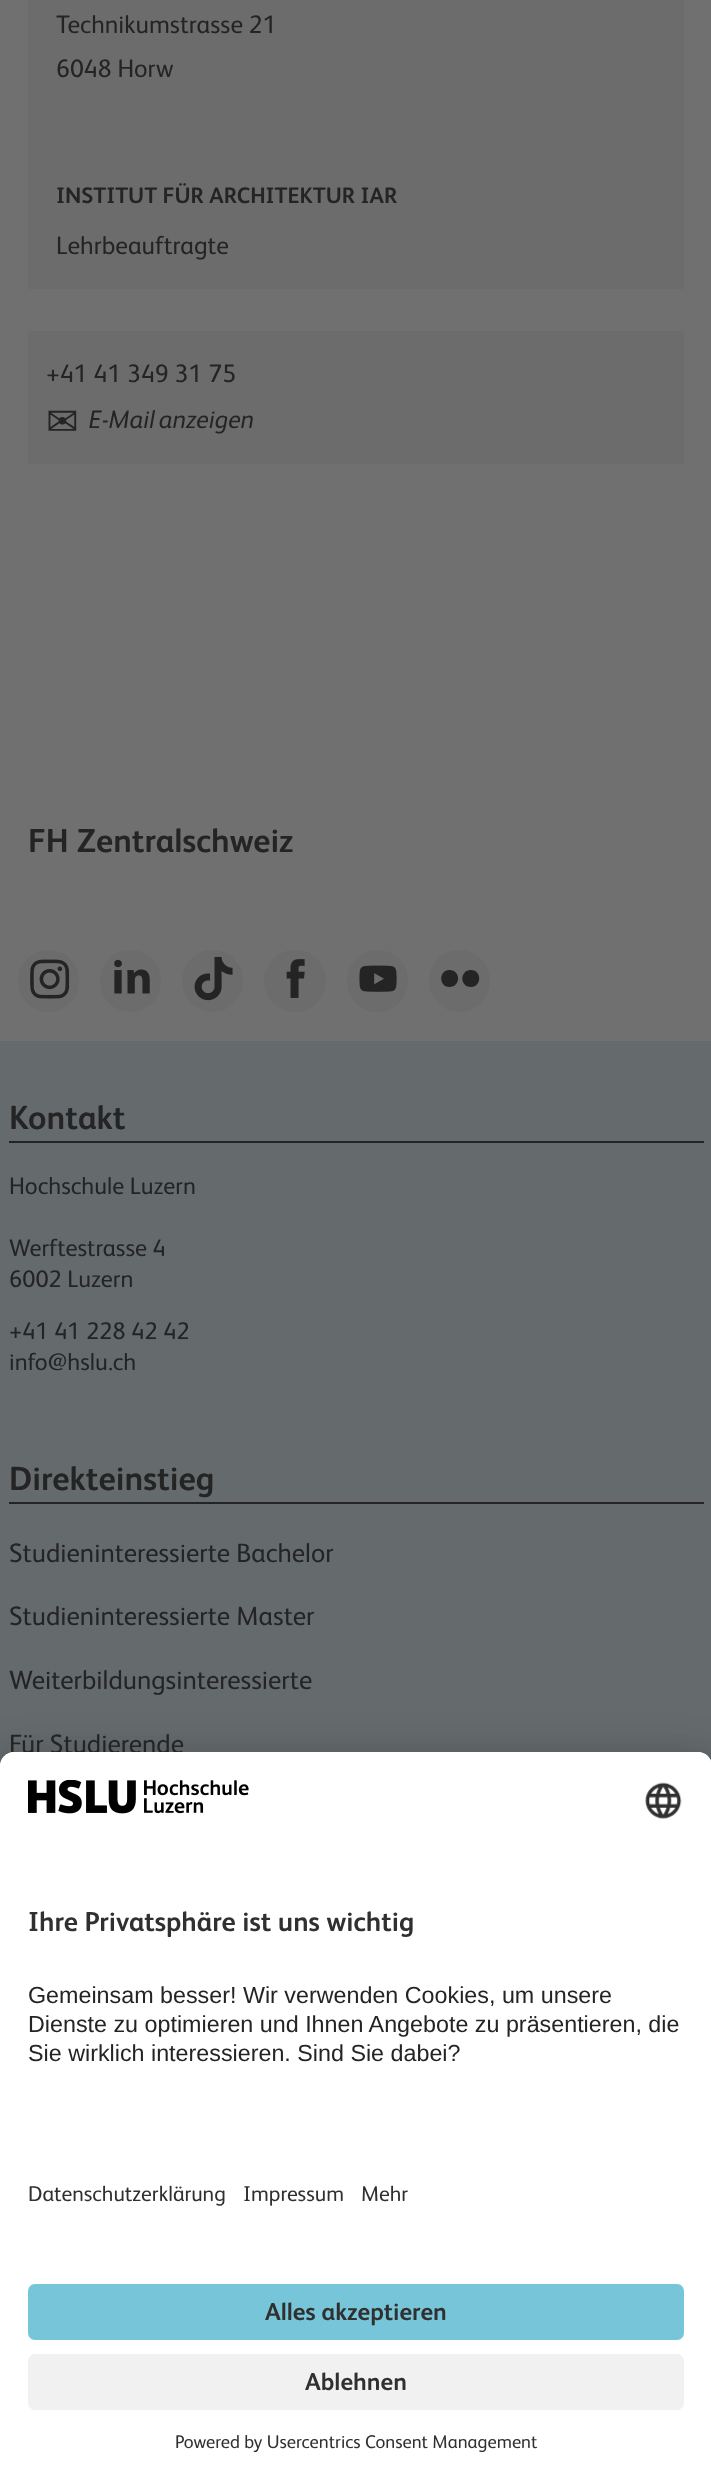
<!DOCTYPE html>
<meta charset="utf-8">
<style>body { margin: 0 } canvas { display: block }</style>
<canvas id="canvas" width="711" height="2479"></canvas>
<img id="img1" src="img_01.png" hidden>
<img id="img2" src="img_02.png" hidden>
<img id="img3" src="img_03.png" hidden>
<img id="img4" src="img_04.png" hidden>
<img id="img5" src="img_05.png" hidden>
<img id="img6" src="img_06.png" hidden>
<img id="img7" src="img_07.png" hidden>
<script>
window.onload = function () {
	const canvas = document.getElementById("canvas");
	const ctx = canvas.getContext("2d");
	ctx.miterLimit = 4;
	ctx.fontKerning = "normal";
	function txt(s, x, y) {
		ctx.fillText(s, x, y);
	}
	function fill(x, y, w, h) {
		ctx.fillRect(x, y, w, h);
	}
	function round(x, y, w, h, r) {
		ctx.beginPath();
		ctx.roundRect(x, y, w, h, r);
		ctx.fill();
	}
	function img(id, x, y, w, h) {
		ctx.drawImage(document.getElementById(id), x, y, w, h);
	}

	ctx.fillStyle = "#707070";
	fill(0, 0, 711, 2479);
	ctx.fillStyle = "#6C6C6C";
	fill(28, 0, 656, 289);
	fill(28, 331, 656, 133);
	round(18, 950, 61, 62, 30.5);
	img("img1", 30, 959, 40, 40);
	round(100, 950, 61, 62, 30.5);
	img("img2", 114, 959, 36, 35);
	round(182, 950, 61, 62, 30.5);
	img("img3", 194, 956, 39, 45);
	ctx.beginPath();
	ctx.arc(295, 981, 31, 0, Math.PI * 2);
	ctx.fill();
	img("img4", 286, 959, 19, 39);
	round(347, 950, 61, 62, 30.5);
	img("img5", 359, 965, 38, 27);
	round(429, 950, 61, 62, 30.5);
	ctx.fillStyle = "#242424";
	ctx.beginPath();
	ctx.moveTo(449.5, 970);
	ctx.bezierCurveTo(438.5, 970, 438.5, 987, 449.5, 987);
	ctx.bezierCurveTo(461, 987, 461, 970, 449.5, 970);
	ctx.closePath();
	ctx.moveTo(471, 970);
	ctx.bezierCurveTo(459.5, 970, 459.5, 987, 471, 987);
	ctx.bezierCurveTo(482, 987, 482, 970, 471, 970);
	ctx.closePath();
	ctx.fill();
	ctx.fillStyle = "#656B6D";
	fill(0, 1041, 711, 725);
	ctx.fillStyle = "#242424";
	fill(9, 1141, 695, 2);
	fill(9, 1502, 695, 2);
	ctx.fillStyle = "rgba(0, 0, 0, 0.3)";
	ctx.filter = "blur(24.5px)";
	ctx.beginPath();
	ctx.roundRect(0, 1787, 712, 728, 14);
	ctx.fill();
	ctx.filter = "none";
	ctx.fillStyle = "rgba(0, 0, 0, 0.22)";
	ctx.filter = "blur(23px)";
	ctx.beginPath();
	ctx.roundRect(0, 1761, 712, 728, 14);
	ctx.fill();
	ctx.filter = "none";
	ctx.font = "25.25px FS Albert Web";
	ctx.fillStyle = "#242424";
	txt("Technikumstrasse 21", 56, 33);
	txt("6048 Horw", 56, 77);
	ctx.font = "bold 22.4px FS Albert Web";
	txt("INSTITUT FÜR ARCHITEKTUR IAR", 56, 203);
	ctx.font = "25.25px FS Albert Web";
	txt("Lehrbeauftragte", 56, 254);
	txt("+41 41 349 31 75", 46, 382);
	ctx.font = "39px DejaVu Sans";
	txt("✉", 46, 435);
	ctx.wordSpacing = "-2px";
	ctx.font = "italic 25.25px FS Albert Web";
	txt("E-Mail anzeigen", 89, 428);
	ctx.wordSpacing = "0px";
	ctx.font = "bold 33.25px FS Albert Web";
	txt("FH Zentralschweiz", 28, 852);
	ctx.font = "bold 33.5px FS Albert Web";
	txt("Kontakt", 9, 1129);
	ctx.font = "24px FS Albert Web";
	txt("Hochschule Luzern", 9, 1194);
	txt("Werftestrasse 4", 9, 1256);
	txt("6002 Luzern", 9, 1287);
	txt("+41 41 228 42 42", 9, 1339);
	txt("info@hslu.ch", 9, 1370);
	ctx.font = "bold 33.5px FS Albert Web";
	txt("Direkteinstieg", 9, 1490);
	ctx.font = "26.6px FS Albert Web";
	txt("Studieninteressierte Bachelor", 9, 1562);
	txt("Studieninteressierte Master", 9, 1625);
	txt("Weiterbildungsinteressierte", 9, 1689);
	txt("Für Studierende", 9, 1753);
	ctx.fillStyle = "#FFFFFF";
	ctx.beginPath();
	ctx.moveTo(14, 1752);
	ctx.lineTo(698, 1752);
	ctx.bezierCurveTo(705.5, 1752, 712, 1758.5, 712, 1766);
	ctx.lineTo(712, 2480);
	ctx.lineTo(0, 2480);
	ctx.lineTo(0, 1766);
	ctx.bezierCurveTo(0, 1758.5, 6.5, 1752, 14, 1752);
	ctx.closePath();
	ctx.fill();
	ctx.beginPath();
	ctx.moveTo(14, 1752);
	ctx.lineTo(698, 1752);
	ctx.bezierCurveTo(705.5, 1752, 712, 1758.5, 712, 1766);
	ctx.lineTo(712, 2263);
	ctx.lineTo(0, 2263);
	ctx.lineTo(0, 1766);
	ctx.bezierCurveTo(0, 1758.5, 6.5, 1752, 14, 1752);
	ctx.closePath();
	ctx.fill();
	img("img6", 28, 1780, 221, 34);
	img("img7", 645, 1782, 37, 37);
	ctx.font = "bold 27.5px FS Albert Web";
	ctx.fillStyle = "#303030";
	txt("Ihre Privatsphäre ist uns wichtig", 28, 1931);
	ctx.font = "23.3px Liberation Sans";
	ctx.fillStyle = "#242424";
	txt("Gemeinsam besser! Wir verwenden Cookies, um unsere", 28, 2003);
	txt("Dienste zu optimieren und Ihnen Angebote zu präsentieren, die", 28, 2032);
	txt("Sie wirklich interessieren. Sind Sie dabei?", 28, 2061);
	ctx.font = "21.5px FS Albert Web";
	ctx.fillStyle = "#303030";
	txt("Datenschutzerklärung", 28, 2201);
	txt("Impressum", 243, 2201);
	txt("Mehr", 361, 2201);
	ctx.fillStyle = "#77C5D8";
	round(28, 2284, 656, 56, 7);
	ctx.font = "bold 24.5px FS Albert Web";
	ctx.fillStyle = "#303030";
	txt("Alles akzeptieren", 265, 2320);
	ctx.fillStyle = "#F1F1F1";
	round(28, 2354, 656, 56, 7);
	ctx.fillStyle = "#303030";
	txt("Ablehnen", 305, 2390);
	ctx.font = "18.4px FS Albert Web";
	txt("Powered by Usercentrics Consent Management", 175, 2448);
};
</script>
